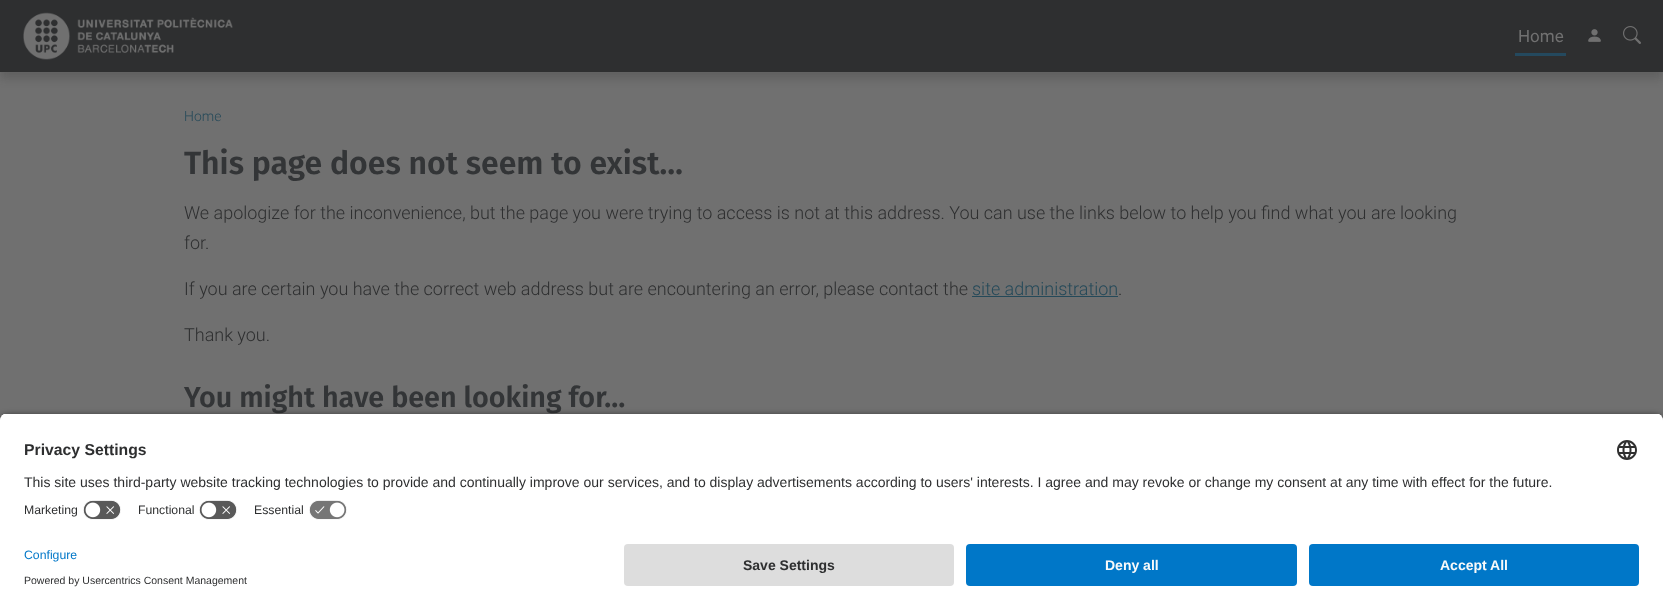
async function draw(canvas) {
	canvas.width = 1663;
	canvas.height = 610;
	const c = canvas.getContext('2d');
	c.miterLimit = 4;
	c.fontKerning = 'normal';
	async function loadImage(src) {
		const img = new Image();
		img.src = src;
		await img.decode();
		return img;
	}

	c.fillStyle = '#707070';
	c.fillRect(0, 0, 1663, 610);
	c.fillStyle = '#24242433';
	c.filter = 'blur(4px)';
	c.beginPath();
	c.rect(0, 7, 1663, 72);
	c.fill();
	c.filter = 'none';
	c.fillStyle = '#2e2f30';
	c.fillRect(0, 0, 1663, 72);
	c.drawImage(await loadImage('img1.png'), 23, 12, 210, 48);
	c.fillStyle = '#24495e';
	c.fillRect(1515, 53, 51, 3);
	c.font = '17px Roboto';
	c.fillStyle = '#707070';
	c.fillText('Home', 1518, 42);
	c.drawImage(await loadImage('img2.png'), 1588, 29, 13, 13);
	c.drawImage(await loadImage('img3.png'), 1623, 26, 18, 18);
	c.font = '300 14px Roboto';
	c.fillStyle = '#244959';
	c.fillText('Home', 184, 121);
	c.font = '600 32px Fira Sans';
	c.fillStyle = '#333537';
	c.fillText('This page does not seem to exist…', 184, 174);
	c.font = '300 18px Roboto';
	c.fillStyle = '#2e2f30';
	for (const [text, x, y] of [
		['We apologize for the inconvenience, but the page you were trying to access is not at this address. You can use the links below to help you find what you are looking', 184, 219],
		['for.', 184, 249],
		['If you are certain you have the correct web address but are encountering an error, please contact the', 184, 295],
	]) {
		c.fillText(text, x, y);
	}
	c.fillStyle = '#244959';
	c.fillText('site administration', 972, 295);
	c.fillRect(972, 296, 146, 1);
	c.fillStyle = '#2e2f30';
	c.fillText('.', 1118, 295);
	c.fillText('Thank you.', 184, 341);
	c.font = '600 28.75px Fira Sans';
	c.fillStyle = '#333537';
	c.fillText('You might have been looking for…', 184, 407);
	c.fillStyle = '#000000cc';
	c.filter = 'blur(3.5px)';
	c.beginPath();
	c.roundRect(0, 416, 1663, 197, 8);
	c.fill();
	c.filter = 'none';
	c.save();
	c.beginPath();
	c.roundRect(0, 413, 1663, 123, [8, 8, 0, 0]);
	c.clip();
	c.fillStyle = '#fff';
	c.fillRect(0, 414, 1663, 122);
	c.fillRect(0, 414, 1663, 82);
	c.restore();
	c.font = 'bold 15.75px Liberation Sans';
	c.fillStyle = '#2e2f30';
	c.fillText('Privacy Settings', 24, 455);
	c.drawImage(await loadImage('img4.png'), 1617, 440, 20, 20);
	c.font = '14px Liberation Sans';
	c.fillText('This site uses third-party website tracking technologies to provide and continually improve our services, and to display advertisements according to users\' interests. I agree and may revoke or change my consent at any time with effect for the future.', 24, 487);
	c.font = '12.25px Liberation Sans';
	c.fillText('Marketing', 24, 514);
	c.drawImage(await loadImage('img5.png'), 83, 500, 38, 20);
	c.fillText('Functional', 138, 514);
	c.drawImage(await loadImage('img5.png'), 199, 500, 38, 20);
	c.fillText('Essential', 254, 514);
	c.drawImage(await loadImage('img6.png'), 309, 500, 38, 20);
	c.fillStyle = '#fff';
	c.fillRect(0, 536, 1663, 74);
	c.fillStyle = '#0077c8';
	c.fillText('Configure', 24, 559);
	c.font = '10.5px Liberation Sans';
	c.fillStyle = '#2e2f30';
	c.fillText('Powered by Usercentrics Consent Management', 24, 584);
	c.fillStyle = '#ddd';
	c.beginPath();
	c.roundRect(624, 544, 330, 42, 4);
	c.fill();
	c.font = 'bold 14px Liberation Sans';
	c.fillStyle = '#2e2f30';
	c.fillText('Save Settings', 743, 570);
	c.fillStyle = '#0077c8';
	c.beginPath();
	c.roundRect(966, 544, 331, 42, 4);
	c.fill();
	c.fillStyle = '#fafafa';
	c.fillText('Deny all', 1105, 570);
	c.fillStyle = '#0077c8';
	c.beginPath();
	c.roundRect(1309, 544, 330, 42, 4);
	c.fill();
	c.fillStyle = '#fafafa';
	c.fillText('Accept All', 1440, 570);
}

draw(document.querySelector('canvas'));
